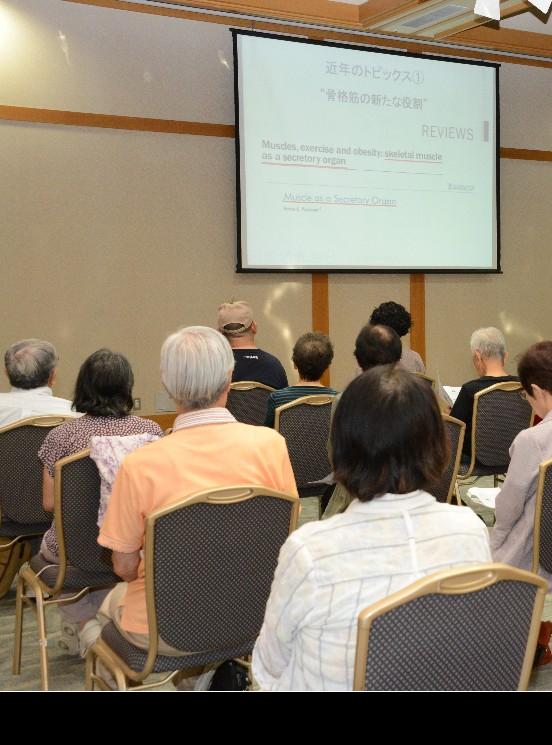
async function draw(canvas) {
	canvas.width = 552;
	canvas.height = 745;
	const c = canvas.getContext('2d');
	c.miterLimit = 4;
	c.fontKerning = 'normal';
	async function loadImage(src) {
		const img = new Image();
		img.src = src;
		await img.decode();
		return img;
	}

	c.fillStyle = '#000';
	c.fillRect(0, 0, 552, 745);
	c.drawImage(await loadImage('img1.png'), 0, 0, 552, 692);
}

draw(document.querySelector('canvas'));
